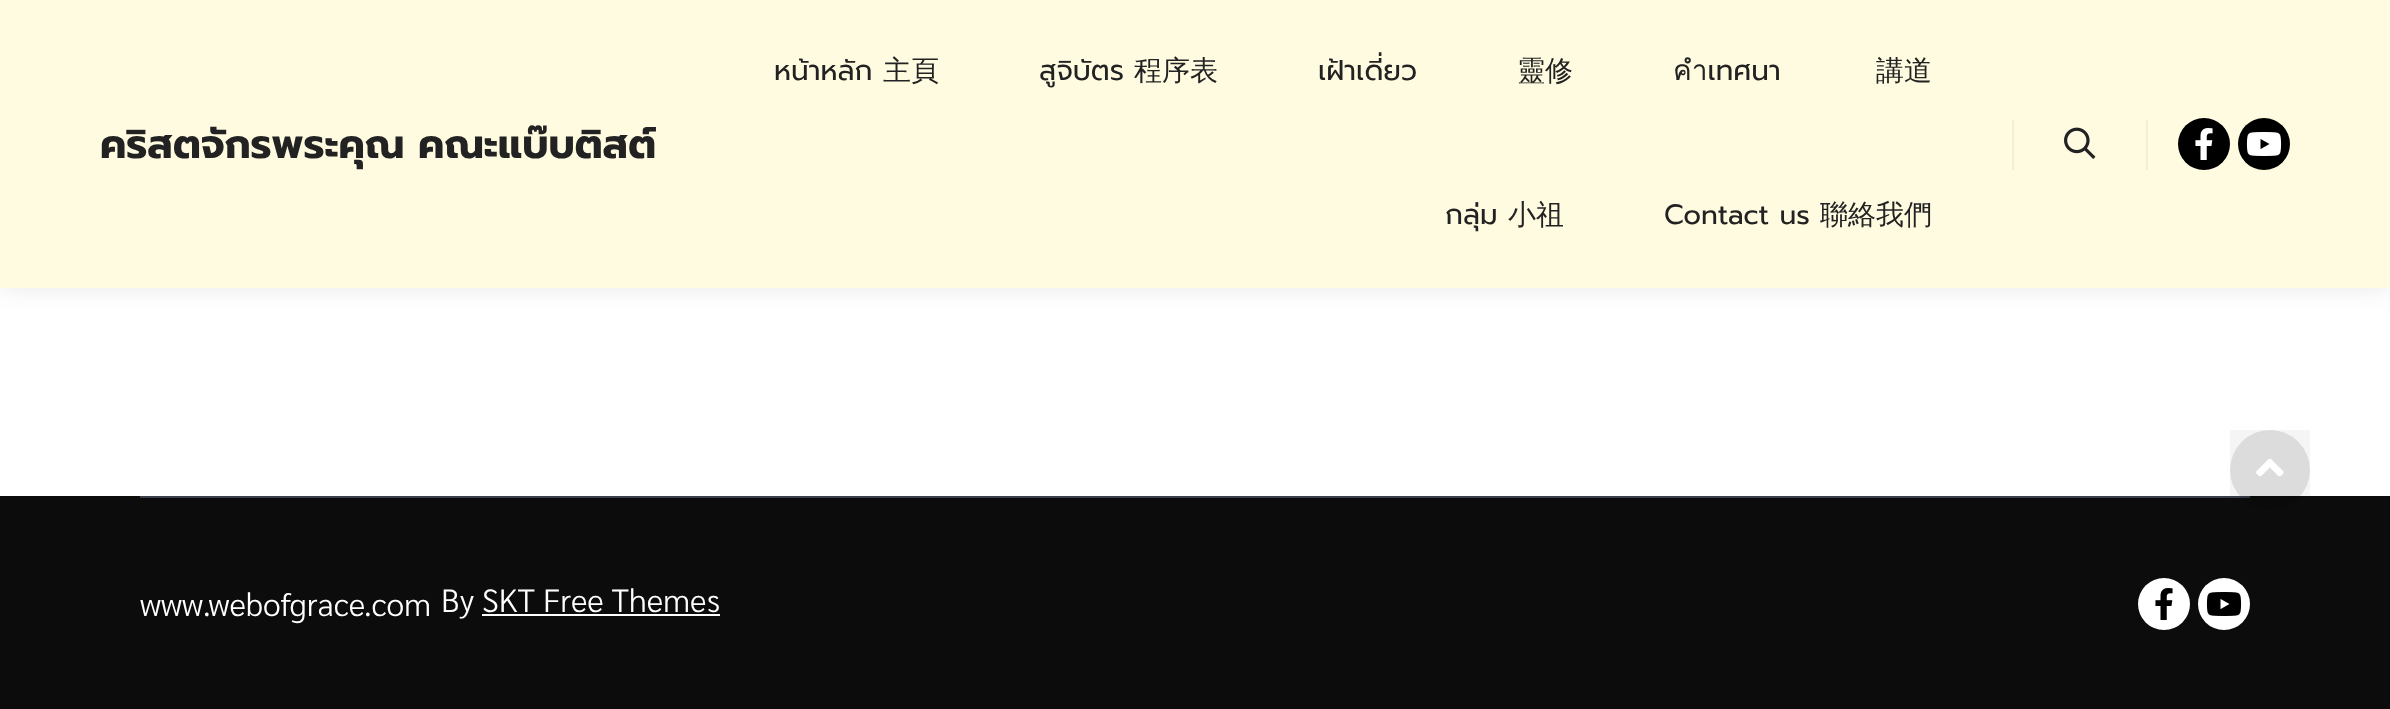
async function draw(canvas) {
	canvas.width = 2390;
	canvas.height = 709;
	const c = canvas.getContext('2d');
	c.miterLimit = 4;
	c.fontKerning = 'normal';
	async function loadImage(src) {
		const img = new Image();
		img.src = src;
		await img.decode();
		return img;
	}

	c.fillStyle = '#fff';
	c.fillRect(0, 0, 2390, 709);
	c.fillStyle = '#00000017';
	c.filter = 'blur(12px)';
	c.beginPath();
	c.rect(0, 0, 2390, 288);
	c.fill();
	c.filter = 'none';
	c.fillStyle = '#fffbe1';
	c.fillRect(0, 0, 2390, 288);
	c.font = 'bold 40px Prompt';
	c.fillStyle = '#222';
	c.fillText('คริสตจักรพระคุณ คณะแบ๊บติสต์', 100, 158);
	c.font = '28px Prompt';
	c.fillText('หน้าหลัก', 774, 80);
	c.font = '500 28px WenQuanYi Zen Hei';
	c.fillText('主頁', 883, 80);
	c.font = '28px Prompt';
	c.fillText('สูจิบัตร', 1039, 80);
	c.font = '500 28px WenQuanYi Zen Hei';
	c.fillText('程序表', 1134, 80);
	c.font = '28px Prompt';
	c.fillText('เฝ้าเดี่ยว', 1318, 80);
	c.font = '500 28px WenQuanYi Zen Hei';
	c.fillText('靈修', 1517, 80);
	c.font = '28px Prompt';
	c.fillText('คำเทศนา', 1673, 80);
	c.font = '500 28px WenQuanYi Zen Hei';
	c.fillText('講道', 1876, 80);
	c.font = '28px Prompt';
	c.fillText('กลุ่ม', 1445, 224);
	c.font = '500 28px WenQuanYi Zen Hei';
	c.fillText('小祖', 1508, 224);
	c.font = '28px Prompt';
	c.fillText('Contact us', 1664, 224);
	c.font = '500 28px WenQuanYi Zen Hei';
	c.fillText('聯絡我們', 1820, 224);
	c.fillStyle = '#f3efd7';
	c.fillRect(2012, 120, 2, 50);
	c.drawImage(await loadImage('img1.png'), 2064, 127, 32, 32);
	c.fillRect(2146, 120, 2, 50);
	c.fillStyle = '#000';
	c.beginPath();
	c.arc(2204, 144, 26, 0, 2 * Math.PI);
	c.fill();
	c.drawImage(await loadImage('img2.png'), 2195, 128, 18, 32);
	c.beginPath();
	c.arc(2264, 144, 26, 0, 2 * Math.PI);
	c.fill();
	c.drawImage(await loadImage('img3.png'), 2246, 132, 36, 24);
	c.fillStyle = '#0c0c0c';
	c.fillRect(0, 496, 2390, 213);
	c.fillStyle = '#39404a';
	c.fillRect(140, 496, 2110, 2);
	c.fillStyle = '#0000001a';
	c.beginPath();
	c.arc(2270, 470, 40, 0, 2 * Math.PI);
	c.fill();
	c.fillStyle = '#0000000a';
	c.fillRect(2230, 430, 80, 68);
	c.drawImage(await loadImage('img4.png'), 2256, 458, 28, 19);
	c.font = '300 32px Sarabun';
	c.fillStyle = '#fff';
	c.fillText('www.webofgrace.com', 140, 616);
	c.fillText('By SKT Free Themes', 441, 612);
	c.fillRect(482, 614, 238, 2);
	c.beginPath();
	c.arc(2164, 604, 26, 0, 2 * Math.PI);
	c.fill();
	c.drawImage(await loadImage('img5.png'), 2155, 588, 18, 32);
	c.beginPath();
	c.arc(2224, 604, 26, 0, 2 * Math.PI);
	c.fill();
	c.drawImage(await loadImage('img6.png'), 2206, 592, 36, 24);
}

draw(document.querySelector('canvas'));
